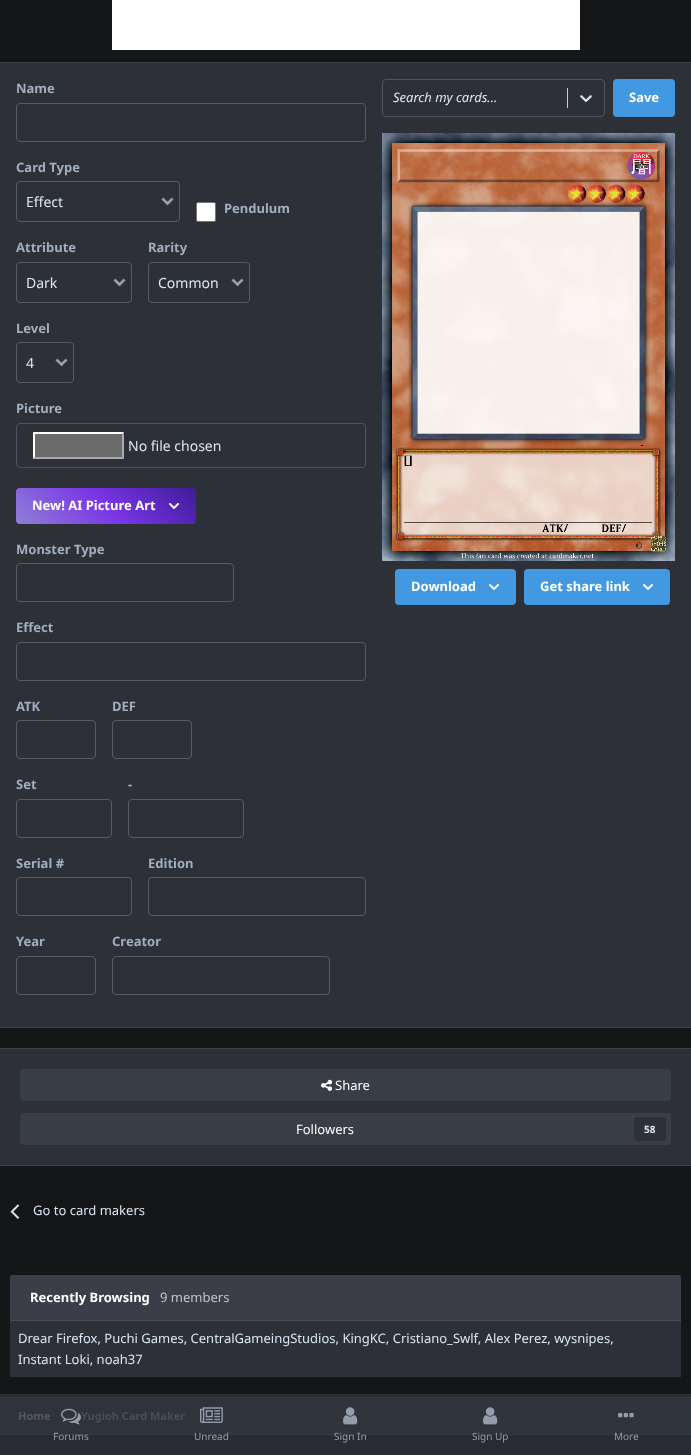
async function draw(canvas) {
	canvas.width = 691;
	canvas.height = 1455;
	const c = canvas.getContext('2d');
	c.miterLimit = 4;
	c.fontKerning = 'normal';
	async function loadImage(src) {
		const img = new Image();
		img.src = src;
		await img.decode();
		return img;
	}
	let gradient;

	c.fillStyle = '#151617';
	c.fillRect(0, 0, 691, 1455);
	for (const [x, y, w, h, color] of [
		[0, 1395, 691, 60, '#282b31'],
		[112, 0, 468, 50, '#fff'],
		[0, 63, 691, 964, '#2d3037'],
		[0, 62, 691, 1, '#3c4043'],
		[0, 1027, 691, 1, '#3c4043'],
	]) {
		c.fillStyle = color;
		c.fillRect(x, y, w, h);
	}
	c.font = 'bold 13px Noto Sans';
	c.fillStyle = '#a0aec0';
	c.fillText('Name', 16, 93);
	c.beginPath();
	c.roundRect(16.5, 103.5, 349, 38, 3.5);
	c.strokeStyle = '#565c66';
	c.stroke();
	c.fillText('Card Type', 16, 172);
	c.drawImage(await loadImage('img1.png'), 161, 197, 13, 9);
	c.beginPath();
	c.roundRect(16.5, 181.5, 163, 40, 3.5);
	c.stroke();
	c.font = '14px Noto Sans';
	c.fillStyle = '#dae6f3';
	c.fillText('Effect', 26, 207);
	c.fillStyle = '#fff';
	c.beginPath();
	c.roundRect(196.5, 202.5, 19, 19, 1.5);
	c.fill();
	c.strokeStyle = '#767676';
	c.stroke();
	c.font = 'bold 13px Noto Sans';
	c.fillStyle = '#a0aec0';
	c.fillText('Pendulum', 224, 213);
	c.fillText('Attribute', 16, 252);
	c.drawImage(await loadImage('img1.png'), 113, 278, 13, 9);
	c.beginPath();
	c.roundRect(16.5, 262.5, 115, 40, 3.5);
	c.strokeStyle = '#565c66';
	c.stroke();
	c.font = '14px Noto Sans';
	c.fillStyle = '#dae6f3';
	c.fillText('Dark', 26, 288);
	c.font = 'bold 13px Noto Sans';
	c.fillStyle = '#a0aec0';
	c.fillText('Rarity', 148, 252);
	c.drawImage(await loadImage('img1.png'), 231, 278, 13, 9);
	c.beginPath();
	c.roundRect(148.5, 262.5, 101, 40, 3.5);
	c.stroke();
	c.font = '14px Noto Sans';
	c.fillStyle = '#dae6f3';
	c.fillText('Common', 158, 288);
	c.font = 'bold 13px Noto Sans';
	c.fillStyle = '#a0aec0';
	c.fillText('Level', 16, 333);
	c.drawImage(await loadImage('img1.png'), 55, 358, 13, 9);
	c.beginPath();
	c.roundRect(16.5, 342.5, 57, 40, 3.5);
	c.stroke();
	c.font = '14px Noto Sans';
	c.fillStyle = '#dae6f3';
	c.fillText('4', 26, 368);
	c.font = 'bold 13px Noto Sans';
	c.fillStyle = '#a0aec0';
	c.fillText('Picture', 16, 413);
	c.beginPath();
	c.roundRect(16.5, 423.5, 349, 44, 3.5);
	c.strokeStyle = '#50545d';
	c.stroke();
	c.fillStyle = '#6b6b6b';
	c.fillRect(33, 432, 91, 27);
	c.fillStyle = '#fff';
	c.beginPath();
	c.moveTo(33, 432);
	c.lineTo(124, 432);
	c.lineTo(122, 434);
	c.lineTo(35, 434);
	c.closePath();
	c.fill();
	c.fillStyle = '#aaa';
	c.beginPath();
	c.moveTo(124, 432);
	c.lineTo(124, 459);
	c.lineTo(122, 457);
	c.lineTo(122, 434);
	c.closePath();
	c.fill();
	c.beginPath();
	c.moveTo(124, 459);
	c.lineTo(33, 459);
	c.lineTo(35, 457);
	c.lineTo(122, 457);
	c.closePath();
	c.fill();
	c.fillStyle = '#fff';
	c.beginPath();
	c.moveTo(33, 459);
	c.lineTo(33, 432);
	c.lineTo(35, 434);
	c.lineTo(35, 457);
	c.closePath();
	c.fill();
	c.font = '14px Noto Sans';
	c.fillStyle = '#dae6f3';
	c.fillText('No file chosen', 128, 451);
	gradient = c.createLinearGradient(52, 560, 160, 452);
	gradient.addColorStop(0, '#8f7fd5');
	gradient.addColorStop(0.5, '#7935e7');
	gradient.addColorStop(1, '#3e1c97');
	c.fillStyle = gradient;
	c.beginPath();
	c.roundRect(16, 488, 180, 36, 4);
	c.fill();
	c.font = 'bold 13px Noto Sans';
	c.fillStyle = '#fff';
	c.fillText('New! AI Picture Art', 32, 510);
	c.drawImage(await loadImage('img2.png'), 169, 503, 10, 6);
	c.fillStyle = '#a0aec0';
	c.fillText('Monster Type', 16, 554);
	c.beginPath();
	c.roundRect(16.5, 563.5, 217, 38, 3.5);
	c.strokeStyle = '#565c66';
	c.stroke();
	c.fillText('Effect', 16, 632);
	c.beginPath();
	c.roundRect(16.5, 642.5, 349, 38, 3.5);
	c.stroke();
	c.fillText('ATK', 16, 711);
	c.beginPath();
	c.roundRect(16.5, 720.5, 79, 38, 3.5);
	c.stroke();
	c.fillText('DEF', 112, 711);
	c.beginPath();
	c.roundRect(112.5, 720.5, 79, 38, 3.5);
	c.stroke();
	c.fillText('Set', 16, 789);
	c.beginPath();
	c.roundRect(16.5, 799.5, 95, 38, 3.5);
	c.stroke();
	c.fillText('-', 128, 789);
	c.beginPath();
	c.roundRect(128.5, 799.5, 115, 38, 3.5);
	c.stroke();
	c.fillText('Serial #', 16, 868);
	c.beginPath();
	c.roundRect(16.5, 877.5, 115, 38, 3.5);
	c.stroke();
	c.fillText('Edition', 148, 868);
	c.beginPath();
	c.roundRect(148.5, 877.5, 217, 38, 3.5);
	c.stroke();
	c.fillText('Year', 16, 946);
	c.beginPath();
	c.roundRect(16.5, 956.5, 79, 38, 3.5);
	c.stroke();
	c.fillText('Creator', 112, 946);
	c.beginPath();
	c.roundRect(112.5, 956.5, 217, 38, 3.5);
	c.stroke();
	c.beginPath();
	c.roundRect(382.5, 79.5, 222, 37, 3.5);
	c.strokeStyle = '#50545d';
	c.stroke();
	c.font = 'italic 13px Noto Sans';
	c.fillStyle = '#dae6f3';
	c.fillText('Search my cards...', 393, 102);
	c.fillStyle = '#ccc';
	c.fillRect(567, 88, 1, 20);
	c.drawImage(await loadImage('img3.png'), 580, 95, 12, 7);
	c.fillStyle = '#4299e1';
	c.beginPath();
	c.roundRect(613, 79, 62, 38, 4);
	c.fill();
	c.font = 'bold 13px Noto Sans';
	c.fillStyle = '#fff';
	c.fillText('Save', 629, 102);
	c.drawImage(await loadImage('img4.png'), 382, 133, 293, 428);
	c.fillStyle = '#4299e1';
	c.beginPath();
	c.roundRect(395, 569, 121, 36, 4);
	c.fill();
	c.fillStyle = '#fff';
	c.fillText('Download', 411, 591);
	c.drawImage(await loadImage('img5.png'), 489, 584, 10, 6);
	c.fillStyle = '#4299e1';
	c.beginPath();
	c.roundRect(524, 569, 146, 36, 4);
	c.fill();
	c.fillStyle = '#fff';
	c.fillText('Get share link', 540, 591);
	c.drawImage(await loadImage('img5.png'), 643, 584, 10, 6);
	for (const [x, y, w, h, color] of [
		[0, 1049, 691, 116, '#2d3037'],
		[0, 1048, 691, 1, '#3c4043'],
		[0, 1165, 691, 1, '#3c4043'],
	]) {
		c.fillStyle = color;
		c.fillRect(x, y, w, h);
	}
	c.fillStyle = '#393d46';
	c.beginPath();
	c.roundRect(20, 1069, 651, 32, 4);
	c.fill();
	c.drawImage(await loadImage('img6.png'), 321, 1079, 12, 12);
	c.font = '13px Noto Sans';
	c.fillStyle = '#fff';
	c.fillText('Share', 335, 1090);
	c.fillStyle = '#393d46';
	c.beginPath();
	c.roundRect(20, 1113, 651, 32, 4);
	c.fill();
	c.fillStyle = '#fff';
	c.fillText('Followers', 296, 1134);
	c.fillStyle = '#2d3037';
	c.beginPath();
	c.roundRect(634, 1117, 32, 24, 4);
	c.fill();
	c.font = 'bold 10px Noto Sans';
	c.fillStyle = '#dae6f3';
	c.fillText('58', 644, 1133);
	c.drawImage(await loadImage('img7.png'), 10, 1204, 10, 15);
	c.font = '13px Noto Sans';
	c.fillText('Go to card makers', 33, 1215);
	c.fillStyle = '#2d3037';
	c.fillRect(10, 1275, 671, 102);
	c.fillStyle = '#3b3e48';
	c.beginPath();
	c.roundRect(10, 1275, 671, 46, [4, 4, 0, 0]);
	c.fill();
	c.fillStyle = '#484c57';
	c.fillRect(10, 1320, 671, 1);
	c.font = 'bold 13px Noto Sans';
	c.fillStyle = '#fff';
	c.fillText('Recently Browsing', 30, 1302);
	c.font = '13px Noto Sans';
	c.fillStyle = '#c4c5c8';
	c.fillText('9 members', 160, 1302);
	c.fillStyle = '#dae6f3';
	c.fillText('Drear Firefox, Puchi Games, CentralGameingStudios, KingKC, Cristiano_Swlf, Alex Perez, wysnipes,', 18, 1343);
	c.fillText('Instant Loki, noah37', 18, 1364);
	c.fillStyle = '#2f333a';
	c.fillRect(0, 1397, 691, 38);
	c.fillStyle = '#393c43';
	c.beginPath();
	c.moveTo(58, 1397);
	c.lineTo(59, 1397);
	c.lineTo(70, 1416);
	c.lineTo(69, 1416);
	c.closePath();
	c.fill();
	c.fillStyle = '#24262c4d';
	c.beginPath();
	c.moveTo(59, 1397);
	c.lineTo(60, 1397);
	c.lineTo(71, 1416);
	c.lineTo(70, 1416);
	c.closePath();
	c.fill();
	c.fillStyle = '#50545d33';
	c.fillRect(0, 1397, 691, 1);
	c.fillStyle = '#393c43';
	c.beginPath();
	c.moveTo(58, 1435);
	c.lineTo(59, 1435);
	c.lineTo(70, 1416);
	c.lineTo(69, 1416);
	c.closePath();
	c.fill();
	c.fillStyle = '#24262c4d';
	c.beginPath();
	c.moveTo(59, 1435);
	c.lineTo(60, 1435);
	c.lineTo(71, 1416);
	c.lineTo(70, 1416);
	c.closePath();
	c.fill();
	c.fillStyle = '#50545d33';
	c.fillRect(0, 1434, 691, 1);
	c.font = 'bold 11px Noto Sans';
	c.fillStyle = '#57595f';
	c.fillText('Home', 18, 1420);
	c.fillStyle = '#4b4e54';
	c.fillText('Yugioh Card Maker', 81, 1420);
	c.fillStyle = '#2c2d2e';
	c.fillRect(0, 1394, 691, 1);
	c.drawImage(await loadImage('img8.png'), 61, 1408, 20, 17);
	c.font = '10px Noto Sans';
	c.fillStyle = '#939dac';
	c.fillText('Forums', 53, 1440);
	c.drawImage(await loadImage('img9.png'), 200, 1407, 23, 16);
	c.fillText('Unread', 194, 1440);
	c.drawImage(await loadImage('img10.png'), 343, 1407, 15, 18);
	c.fillText('Sign In', 334, 1440);
	c.drawImage(await loadImage('img10.png'), 483, 1407, 15, 18);
	c.fillText('Sign Up', 472, 1440);
	c.drawImage(await loadImage('img11.png'), 618, 1413, 16, 5);
	c.fillText('More', 614, 1440);
}

draw(document.querySelector('canvas'));
